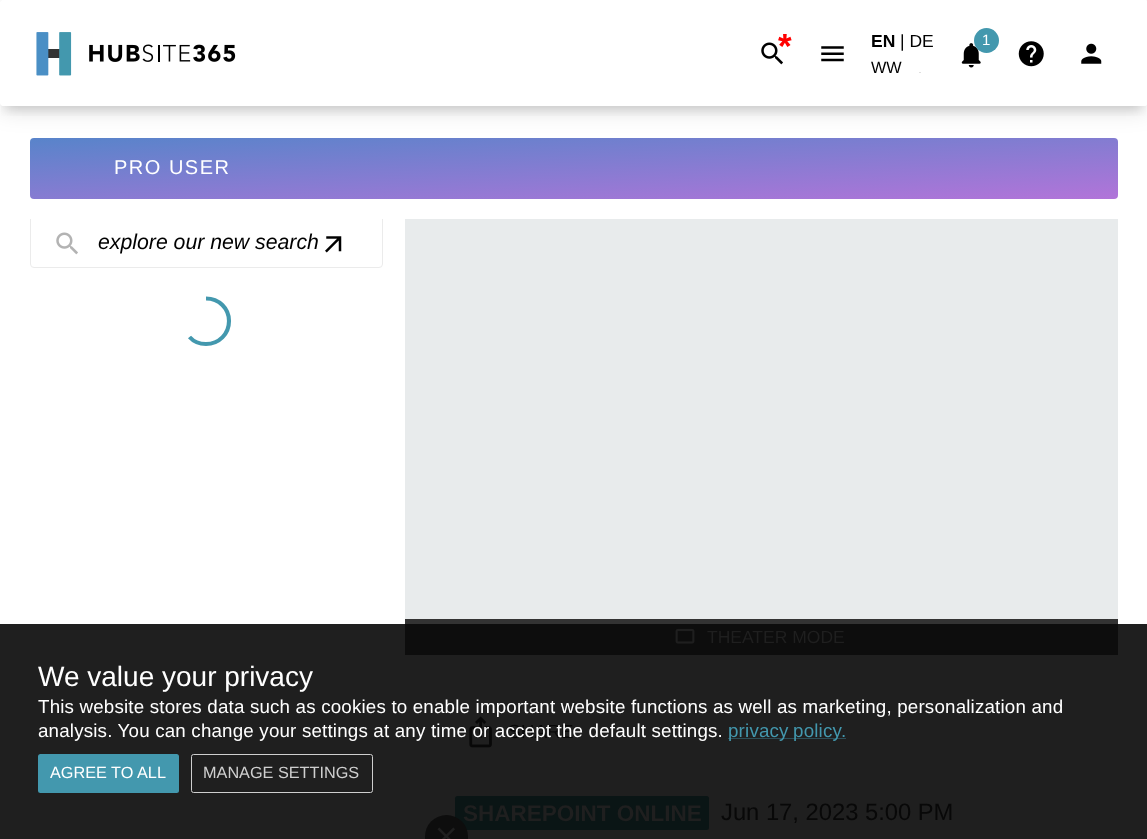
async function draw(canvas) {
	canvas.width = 1147;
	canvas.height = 839;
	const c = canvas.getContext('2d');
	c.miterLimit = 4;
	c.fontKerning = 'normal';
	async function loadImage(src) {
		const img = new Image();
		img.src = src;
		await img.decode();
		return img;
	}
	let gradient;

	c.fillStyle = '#fff';
	c.fillRect(0, 0, 1147, 839);
	c.fillStyle = '#1f1f1f';
	c.fillRect(0, 624, 1147, 215);
	c.save();
	c.beginPath();
	c.rect(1, 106, 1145, 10);
	c.clip();
	c.fillStyle = '#00000026';
	c.filter = 'blur(6px)';
	c.beginPath();
	c.rect(6, 15, 1135, 94);
	c.fill();
	c.filter = 'none';
	c.restore();
	gradient = c.createLinearGradient(577, 227, 571, 109);
	gradient.addColorStop(0, '#b274d9');
	gradient.addColorStop(1, '#5784ca');
	c.fillStyle = gradient;
	c.beginPath();
	c.roundRect(30, 138, 1088, 61, 4);
	c.fill();
	c.save();
	c.beginPath();
	c.moveTo(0, 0);
	c.lineTo(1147, 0);
	c.lineTo(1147, 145);
	c.lineTo(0, 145);
	c.closePath();
	c.moveTo(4, 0);
	c.lineTo(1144, 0);
	c.bezierCurveTo(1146, 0, 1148, 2, 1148, 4);
	c.lineTo(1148, 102);
	c.bezierCurveTo(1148, 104, 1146, 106, 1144, 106);
	c.lineTo(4, 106);
	c.bezierCurveTo(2, 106, 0, 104, 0, 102);
	c.lineTo(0, 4);
	c.bezierCurveTo(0, 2, 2, 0, 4, 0);
	c.closePath();
	c.clip('evenodd');
	c.fillStyle = '#0000001f';
	c.filter = 'blur(11px)';
	c.beginPath();
	c.roundRect(0, 5, 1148, 106, 4);
	c.fill();
	c.filter = 'none';
	c.restore();
	c.fillStyle = '#fffffff5';
	c.beginPath();
	c.roundRect(0, 0, 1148, 106, 4);
	c.fill();
	c.drawImage(await loadImage('img1.png'), 36, 32, 36, 44);
	c.drawImage(await loadImage('img2.png'), 89, 44, 147, 18);
	c.font = 'bold 35px Liberation Sans';
	c.fillStyle = '#f00';
	c.fillText('*', 778, 58);
	c.drawImage(await loadImage('img3.png'), 761, 42, 22, 23);
	c.font = 'bold 17.5px Liberation Sans';
	c.fillStyle = '#000';
	c.fillText('EN', 871, 47);
	c.font = '17.5px Liberation Sans';
	c.fillText('| DE', 900, 47);
	c.font = '16.25px Liberation Sans';
	c.fillText('WW', 871, 73);
	c.beginPath();
	c.moveTo(919.5, 72.5);
	c.lineTo(920, 73);
	c.lineTo(920.5, 72.5);
	c.closePath();
	c.fill();
	c.drawImage(await loadImage('img4.png'), 961, 43, 20, 25);
	c.fillStyle = '#4398ae';
	c.beginPath();
	c.arc(986.5, 40.5, 12.5, 0, 2 * Math.PI);
	c.fill();
	c.font = '15px Liberation Sans';
	c.fillStyle = '#fff';
	c.fillText('1', 982, 45);
	c.drawImage(await loadImage('img5.png'), 1018, 41, 26, 26);
	c.drawImage(await loadImage('img6.png'), 1081, 43, 21, 21);
	c.drawImage(await loadImage('img7.png'), 821, 46, 23, 16);
	c.letterSpacing = '1.5px';
	c.font = '20px Liberation Sans';
	c.fillText('PRO USER', 114, 174);
	c.drawImage(await loadImage('img8.png'), 56, 232, 22, 23);
	c.save();
	c.beginPath();
	c.rect(30, 219, 353, 615);
	c.clip();
	c.beginPath();
	c.roundRect(30.5, 213.5, 352, 54, 3.5);
	c.strokeStyle = '#ebebeb';
	c.stroke();
	c.restore();
	c.letterSpacing = '0px';
	c.font = 'italic 21.25px Liberation Sans';
	c.fillStyle = '#000';
	c.fillText('explore our new search', 98, 249);
	c.drawImage(await loadImage('img9.png'), 325, 236, 17, 17);
	c.beginPath();
	c.moveTo(206, 298.5);
	c.bezierCurveTo(219, 298.5, 229, 308.5, 229, 321);
	c.bezierCurveTo(229, 334, 219, 344, 206, 344);
	c.bezierCurveTo(199.5, 344, 193.5, 341.5, 189.5, 337);
	c.strokeStyle = '#4398ae';
	c.lineWidth = 4.1;
	c.stroke();
	for (const [x, y, w, h, color] of [
		[405, 219, 713, 400, '#e8ebec'],
		[405, 619, 713, 5, '#333'],
		[405, 624, 713, 31, '#0d0d0d'],
	]) {
		c.fillStyle = color;
		c.fillRect(x, y, w, h);
	}
	c.drawImage(await loadImage('img10.png'), 675, 628, 20, 16);
	c.font = '17.5px Liberation Sans';
	c.fillStyle = '#1f1f1f';
	c.fillText('THEATER MODE', 707, 643);
	c.drawImage(await loadImage('img11.png'), 469, 716, 23, 32);
	c.font = '19px Liberation Sans';
	c.fillStyle = '#080808';
	c.fillText('SHARE', 508, 738);
	c.fillStyle = '#0a1515';
	c.beginPath();
	c.roundRect(455, 796, 254, 34, 2.5);
	c.fill();
	c.font = 'bold 22.5px Liberation Sans';
	c.fillStyle = '#1f1f1f';
	c.fillText('SHAREPOINT ONLINE', 463, 821);
	c.font = '23.75px Liberation Sans';
	c.fillStyle = '#080808';
	c.fillText('Jun 17, 2023 5:00 PM', 721, 820);
	c.fillStyle = '#0d0d0d';
	c.beginPath();
	c.arc(446.5, 836.5, 21.5, 0, 2 * Math.PI);
	c.fill();
	c.drawImage(await loadImage('img12.png'), 437, 827, 18, 12);
	c.font = '28px Liberation Sans';
	c.fillStyle = '#fff';
	c.fillText('We value your privacy', 38, 686);
	c.letterSpacing = '0.18px';
	c.font = '18.75px Liberation Sans';
	c.fillText('This website stores data such as cookies to enable important website functions as well as marketing, personalization and', 38, 713);
	c.fillText('analysis. You can change your settings at any time or accept the default settings.', 38, 737);
	c.fillStyle = '#2c4e57';
	c.fillRect(728, 738, 113, 1);
	c.wordSpacing = '-1px';
	c.fillStyle = '#4398ae';
	c.fillText('privacy policy', 728, 737);
	c.wordSpacing = '0px';
	c.fillText('.', 841, 737);
	c.fillStyle = '#2c4e57';
	c.fillRect(841, 738, 5, 1);
	c.fillStyle = '#4398ae';
	c.beginPath();
	c.roundRect(38, 754, 141, 39, 2.5);
	c.fill();
	c.letterSpacing = '0px';
	c.font = '16.25px Liberation Sans';
	c.fillStyle = '#fff';
	c.fillText('AGREE TO ALL', 50, 778);
	c.beginPath();
	c.roundRect(191.5, 754.5, 181, 38, 2);
	c.strokeStyle = '#cfcfcf';
	c.lineWidth = 1;
	c.stroke();
	c.fillStyle = '#cfcfcf';
	c.fillText('MANAGE SETTINGS', 203, 778);
}

draw(document.querySelector('canvas'));
